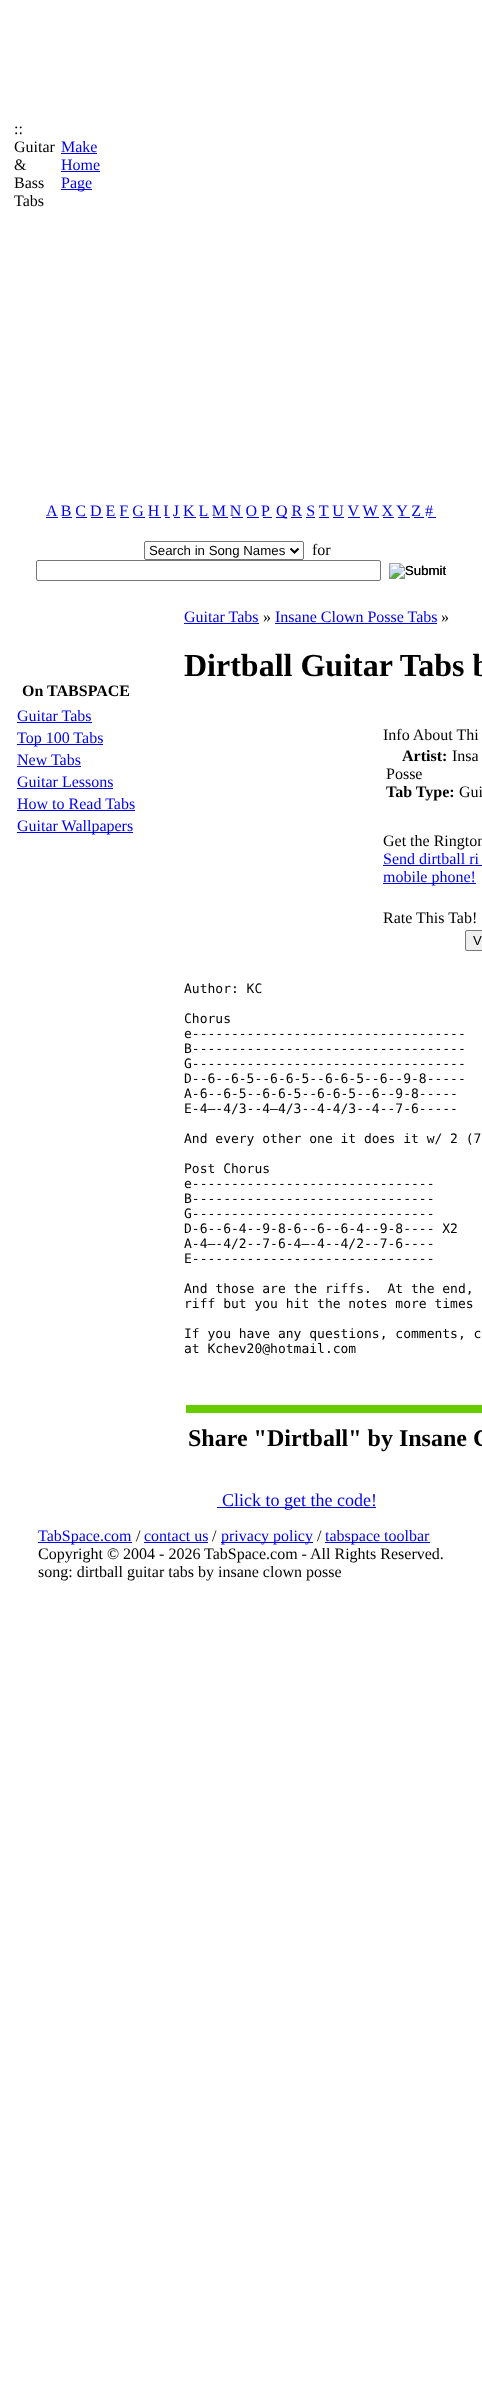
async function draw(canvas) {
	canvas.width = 482;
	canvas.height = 2402;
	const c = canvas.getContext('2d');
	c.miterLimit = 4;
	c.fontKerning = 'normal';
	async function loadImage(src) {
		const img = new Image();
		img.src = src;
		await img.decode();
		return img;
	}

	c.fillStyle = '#fff';
	c.fillRect(0, 0, 482, 2402);
	c.font = '16px Liberation Serif';
	c.fillStyle = '#000';
	for (const [text, x, y] of [
		['::', 14, 134],
		['Guitar', 14, 152],
		['&', 14, 170],
		['Bass', 14, 188],
		['Tabs', 14, 206],
	]) {
		c.fillText(text, x, y);
	}
	c.fillStyle = '#00e';
	c.fillText('Make', 61, 152);
	c.fillRect(61, 153, 36, 1);
	c.fillText('Home', 61, 170);
	c.fillRect(61, 171, 39, 1);
	c.fillRect(61, 189, 31, 1);
	c.fillText('Page', 61, 188);
	c.fillText('A B C D E F G H I J K L M N O P', 46, 516);
	c.fillRect(46, 517, 12, 1);
	c.fillRect(276, 517, 11, 1);
	c.fillText('Q R S T U V W X Y Z #', 276, 516);
	for (const [x, y, w, h, color] of [
		[62, 517, 10, 1, '#00e'],
		[76, 517, 11, 1, '#00e'],
		[91, 517, 12, 1, '#00e'],
		[107, 517, 9, 1, '#00e'],
		[120, 517, 9, 1, '#00e'],
		[133, 517, 12, 1, '#00e'],
		[149, 517, 12, 1, '#00e'],
		[165, 517, 5, 1, '#00e'],
		[174, 517, 6, 1, '#00e'],
		[184, 517, 12, 1, '#00e'],
		[200, 517, 9, 1, '#00e'],
		[213, 517, 15, 1, '#00e'],
		[232, 517, 11, 1, '#00e'],
		[247, 517, 12, 1, '#00e'],
		[263, 517, 9, 1, '#00e'],
		[291, 517, 11, 1, '#00e'],
		[306, 517, 9, 1, '#00e'],
		[319, 517, 10, 1, '#00e'],
		[333, 517, 11, 1, '#00e'],
		[348, 517, 12, 1, '#00e'],
		[364, 517, 15, 1, '#00e'],
		[383, 517, 11, 1, '#00e'],
		[398, 517, 12, 1, '#00e'],
		[414, 517, 10, 1, '#00e'],
		[428, 517, 8, 1, '#00e'],
	]) {
		c.fillStyle = color;
		c.fillRect(x, y, w, h);
	}
	c.beginPath();
	c.roundRect(144.5, 541.5, 159, 18, 1.5);
	c.strokeStyle = '#767676';
	c.stroke();
	c.beginPath();
	c.moveTo(290.5, 548.5);
	c.lineTo(294.5, 552.5);
	c.lineTo(298.5, 548.5);
	c.strokeStyle = '#000';
	c.lineWidth = 2;
	c.stroke();
	c.font = '13.25px Liberation Sans';
	c.fillStyle = '#000';
	c.fillText('Search in Song Names', 149, 555);
	c.font = '16px Liberation Serif';
	c.fillText('for', 312, 555);
	c.beginPath();
	c.roundRect(36.5, 560.5, 344, 20, 1.5);
	c.strokeStyle = '#767676';
	c.lineWidth = 1;
	c.stroke();
	c.drawImage(await loadImage('img1.png'), 389, 563, 57, 16);
	c.font = '13.25px Liberation Sans';
	c.fillText('Submit', 405, 575);
	c.font = 'bold 16px Liberation Serif';
	c.fillText('On TABSPACE', 22, 696);
	c.font = '16px Liberation Serif';
	c.fillStyle = '#00e';
	c.fillText('Guitar Tabs', 17, 721);
	c.fillRect(17, 722, 75, 1);
	c.fillRect(17, 744, 86, 1);
	c.fillText('Top 100 Tabs', 17, 743);
	c.fillText('New Tabs', 17, 765);
	c.fillRect(17, 766, 64, 1);
	c.fillText('Guitar Lessons', 17, 787);
	c.fillRect(17, 788, 96, 1);
	c.fillText('How to Read Tabs', 17, 809);
	c.fillRect(17, 810, 118, 1);
	c.fillRect(17, 832, 116, 1);
	c.fillText('Guitar Wallpapers', 17, 831);
	c.fillText('Guitar Tabs', 184, 622);
	c.fillRect(184, 623, 75, 1);
	c.fillStyle = '#000';
	c.fillText('»', 263, 622);
	c.fillStyle = '#00e';
	c.fillText('Insane Clown Posse Tabs', 275, 622);
	c.fillRect(275, 623, 162, 1);
	c.fillStyle = '#000';
	c.fillText('»', 441, 622);
	c.font = 'bold 32px Liberation Serif';
	c.fillText('Dirtball Guitar Tabs b', 184, 676);
	c.font = '16px Liberation Serif';
	c.fillText('Info About Thi', 383, 740);
	c.font = 'bold 16px Liberation Serif';
	c.fillText('Artist:', 402, 761);
	c.font = '16px Liberation Serif';
	c.fillText('Insa', 452, 761);
	c.fillText('Posse', 386, 779);
	c.font = 'bold 16px Liberation Serif';
	c.fillText('Tab Type:', 386, 797);
	c.font = '16px Liberation Serif';
	c.fillText('Gui', 459, 797);
	c.fillText('Get the Rington', 383, 846);
	c.fillStyle = '#00e';
	c.fillText('Send dirtball ri', 383, 864);
	c.fillRect(383, 865, 99, 1);
	c.fillRect(383, 883, 93, 1);
	c.fillText('mobile phone!', 383, 882);
	c.fillStyle = '#000';
	c.fillText('Rate This Tab!', 383, 923);
	c.fillStyle = '#efefef';
	c.beginPath();
	c.roundRect(465.5, 930.5, 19, 20, 1.5);
	c.fill();
	c.stroke();
	c.font = '13.25px Liberation Sans';
	c.fillStyle = '#000';
	c.fillText('V', 473, 945);
	c.font = '13px DejaVu Sans Mono';
	for (const [text, x, y] of [
		['Author: KC', 184, 993],
		['Chorus', 184, 1023],
		['e-----------------------------------', 184, 1038],
		['B-----------------------------------', 184, 1053],
		['G-----------------------------------', 184, 1068],
		['D--6--6-5--6-6-5--6-6-5--6--9-8-----', 184, 1083],
		['A-6--6-5--6-6-5--6-6-5--6--9-8-----', 184, 1098],
		['E-4—-4/3--4—4/3--4-4/3--4--7-6-----', 184, 1113],
		['And every other one it does it w/ 2 (7', 184, 1143],
		['Post Chorus', 184, 1173],
		['e-------------------------------', 184, 1188],
		['B-------------------------------', 184, 1203],
		['G-------------------------------', 184, 1218],
		['D-6--6-4--9-8-6--6--6-4--9-8---- X2', 184, 1233],
		['A-4—-4/2--7-6-4—-4--4/2--7-6----', 184, 1248],
		['E-------------------------------', 184, 1263],
		['And those are the riffs.  At the end,', 184, 1293],
		['riff but you hit the notes more times', 184, 1308],
		['If you have any questions, comments, c', 184, 1338],
		['at Kchev20@hotmail.com', 184, 1353],
	]) {
		c.fillText(text, x, y);
	}
	c.fillStyle = '#6c0';
	c.fillRect(186, 1405, 296, 8);
	c.font = 'bold 24px Liberation Serif';
	c.fillStyle = '#000';
	c.fillText('Share "Dirtball" by Insane C', 188, 1446);
	c.fillStyle = '#00e';
	c.fillRect(217, 1507, 159, 1);
	c.font = '18px Liberation Serif';
	c.fillText('Click to get the code!', 222, 1506);
	c.fillRect(38, 1542, 94, 1);
	c.font = '16px Liberation Serif';
	c.fillText('TabSpace.com', 38, 1541);
	c.fillStyle = '#000';
	c.fillText('/', 136, 1541);
	c.fillStyle = '#00e';
	c.fillText('contact us', 144, 1541);
	c.fillRect(144, 1542, 64, 1);
	c.fillStyle = '#000';
	c.fillText('/', 212, 1541);
	c.fillStyle = '#00e';
	c.fillRect(221, 1542, 92, 1);
	c.fillText('privacy policy', 221, 1541);
	c.fillStyle = '#000';
	c.fillText('/', 317, 1541);
	c.fillStyle = '#00e';
	c.fillRect(325, 1542, 105, 1);
	c.fillText('tabspace toolbar', 325, 1541);
	c.fillStyle = '#000';
	c.fillText('Copyright © 2004 - 2026 TabSpace.com - All Rights Reserved.', 38, 1559);
	c.fillText('song: dirtball guitar tabs by insane clown posse', 38, 1577);
}

draw(document.querySelector('canvas'));
